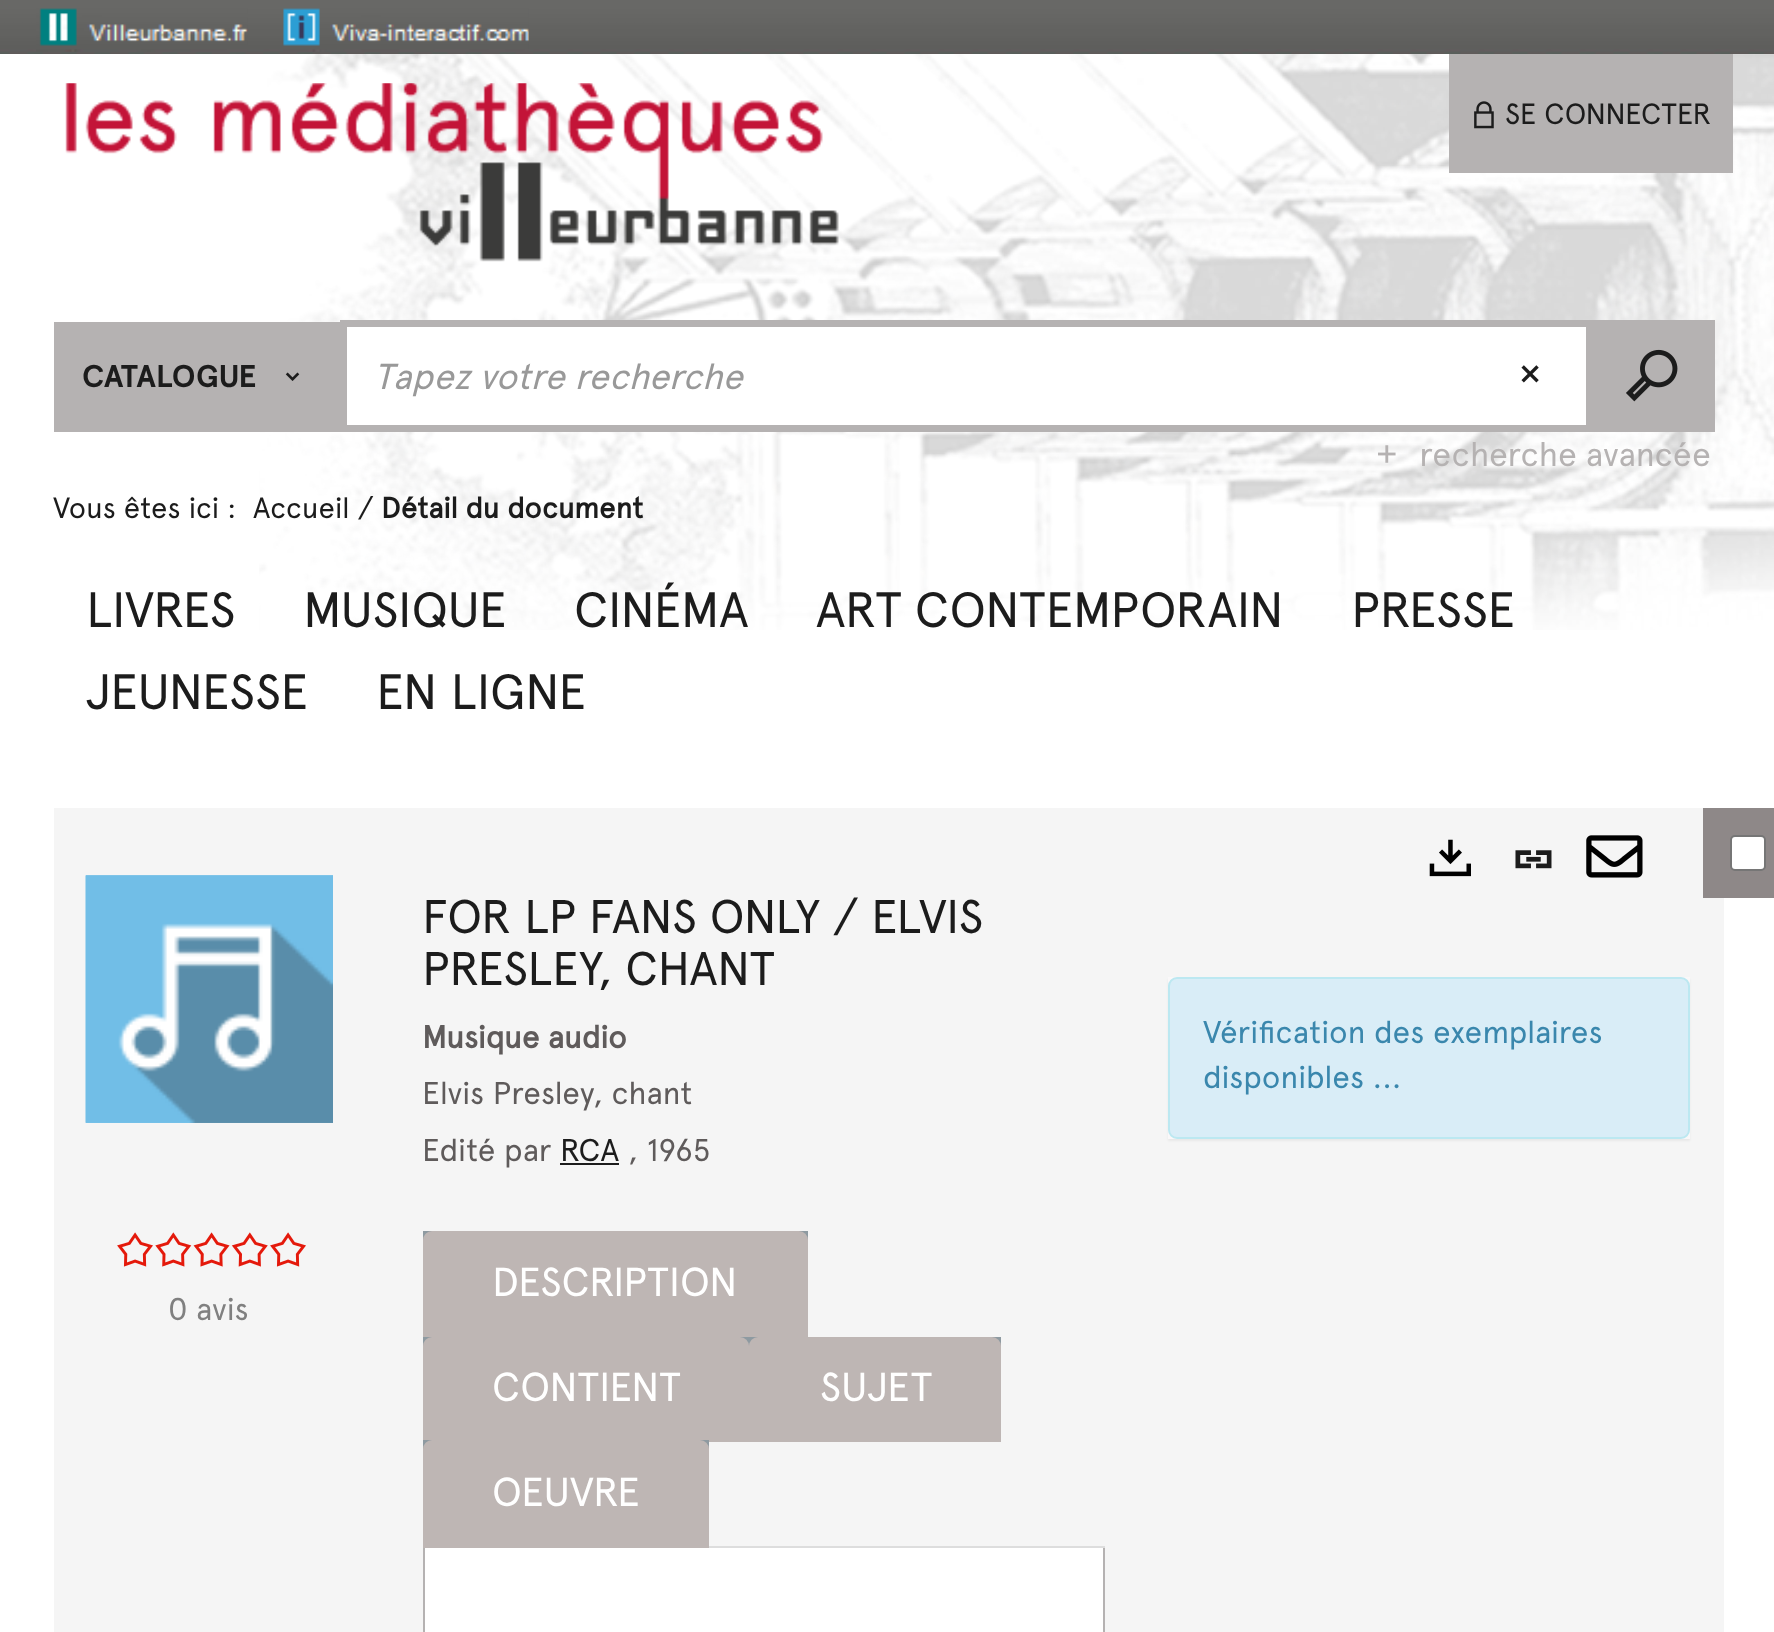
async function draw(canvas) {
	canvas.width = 1774;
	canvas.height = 1632;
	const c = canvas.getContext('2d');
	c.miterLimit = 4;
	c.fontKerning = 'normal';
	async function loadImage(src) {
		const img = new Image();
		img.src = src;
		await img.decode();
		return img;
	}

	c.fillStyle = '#fff';
	c.fillRect(0, 0, 1774, 1632);
	c.drawImage(await loadImage('img1.png'), 259, 54, 1515, 576);
	c.drawImage(await loadImage('img2.png'), 0, 0, 1774, 54);
	c.drawImage(await loadImage('img3.png'), 65, 83, 774, 179);
	c.drawImage(await loadImage('img4.png'), 36, 8, 212, 44);
	c.drawImage(await loadImage('img5.png'), 283, 8, 246, 44);
	c.fillStyle = '#b5b2b2';
	c.fillRect(1449, 54, 284, 119);
	c.drawImage(await loadImage('img6.png'), 1474, 101, 20, 28);
	c.font = '29.25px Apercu';
	c.fillStyle = '#1c1c1c';
	c.fillText('SE CONNECTER', 1505, 124);
	c.fillStyle = '#b5b2b2';
	c.fillRect(54, 322, 286, 110);
	c.font = 'bold 31.5px "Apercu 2"';
	c.fillStyle = '#1c1c1c';
	c.fillText('CATALOGUE', 82, 387);
	c.drawImage(await loadImage('img7.png'), 285, 372, 15, 9);
	for (const [x, y, w, h, color] of [
		[347, 327, 1239, 98, '#fff'],
		[340, 320, 1253, 7, '#b5b2b2'],
		[340, 425, 1145, 7, '#b5b2b2'],
		[340, 320, 7, 112, '#b5b2b2'],
	]) {
		c.fillStyle = color;
		c.fillRect(x, y, w, h);
	}
	c.font = 'italic 36px Apercu';
	c.fillStyle = '#999';
	c.fillText('Tapez votre recherche', 374, 389);
	c.fillStyle = '#b5b2b2';
	c.fillRect(1586, 320, 129, 112);
	c.fillRect(1483, 425, 110, 7);
	c.drawImage(await loadImage('img8.png'), 1521, 365, 18, 18);
	c.drawImage(await loadImage('img9.png'), 1626, 349, 52, 53);
	c.drawImage(await loadImage('img10.png'), 1378, 445, 18, 18);
	c.font = '33.75px Apercu';
	c.fillText('recherche avancée', 1419, 466);
	c.font = '29.25px Apercu';
	c.fillStyle = '#1c1c1c';
	c.fillText('Vous êtes ici :', 53, 518);
	c.fillText('Accueil /', 253, 518);
	c.font = 'bold 29.25px Apercu';
	c.fillText('Détail du document', 381, 518);
	c.font = '49.5px Apercu';
	for (const [text, x, y] of [
		['LIVRES', 86, 627],
		['MUSIQUE', 303, 627],
		['CINÉMA', 574, 627],
		['ART CONTEMPORAIN', 816, 627],
		['PRESSE', 1351, 627],
		['JEUNESSE', 86, 709],
		['EN LIGNE', 376, 709],
	]) {
		c.fillText(text, x, y);
	}
	c.fillStyle = '#f5f5f5';
	c.fillRect(54, 808, 1670, 824);
	c.drawImage(await loadImage('img11.png'), 85, 875, 248, 248);
	c.drawImage(await loadImage('img12.png'), 85, 875, 248, 248);
	c.drawImage(await loadImage('img13.png'), 117, 1232, 36, 35);
	c.drawImage(await loadImage('img14.png'), 155, 1232, 37, 35);
	c.drawImage(await loadImage('img15.png'), 193, 1232, 37, 35);
	c.drawImage(await loadImage('img16.png'), 231, 1232, 37, 35);
	c.drawImage(await loadImage('img13.png'), 270, 1232, 36, 35);
	c.font = '31.5px Apercu';
	c.fillStyle = '#808080';
	c.fillText('0 avis', 168, 1320);
	c.font = '47.25px Apercu';
	c.fillStyle = '#1c1c1c';
	c.fillText('FOR LP FANS ONLY / ELVIS', 422, 933);
	c.fillText('PRESLEY, CHANT', 422, 985);
	c.font = 'bold 31.5px Apercu';
	c.fillStyle = '#5f5b5b';
	c.fillText('Musique audio', 422, 1048);
	c.font = '31.5px Apercu';
	c.fillText('Elvis Presley, chant', 422, 1104);
	c.fillText('Edité par', 422, 1161);
	c.fillStyle = '#1c1c1c';
	c.fillText('RCA', 560, 1161);
	c.fillRect(560, 1163, 59, 2);
	c.fillStyle = '#5f5b5b';
	c.fillText(', 1965', 628, 1161);
	c.fillStyle = '#ddd';
	c.fillRect(709, 1546, 396, 2);
	c.fillStyle = '#8e9aa1';
	c.fillRect(423, 1231, 385, 9);
	c.fillStyle = '#beb6b4';
	c.beginPath();
	c.roundRect(423, 1231, 385, 108, [9, 9, 0, 0]);
	c.fill();
	c.font = '40.5px Apercu';
	c.fillStyle = '#fff';
	c.fillText('DESCRIPTION', 492, 1296);
	c.fillStyle = '#8e9aa1';
	c.fillRect(423, 1337, 578, 9);
	c.fillStyle = '#beb6b4';
	c.beginPath();
	c.roundRect(423, 1337, 326, 105, [9, 9, 0, 0]);
	c.fill();
	c.fillStyle = '#fff';
	c.fillText('CONTIENT', 492, 1401);
	c.fillStyle = '#beb6b4';
	c.beginPath();
	c.roundRect(749, 1337, 252, 105, [9, 9, 0, 0]);
	c.fill();
	c.fillStyle = '#fff';
	c.fillText('SUJET', 820, 1401);
	c.fillStyle = '#8e9aa1';
	c.fillRect(423, 1440, 286, 9);
	c.fillStyle = '#beb6b4';
	c.beginPath();
	c.roundRect(423, 1440, 286, 108, [9, 9, 0, 0]);
	c.fill();
	c.fillStyle = '#fff';
	c.fillText('OEUVRE', 492, 1506);
	for (const [x, y, w, h, color] of [
		[425, 1548, 678, 84, '#fff'],
		[1103, 1548, 2, 84, '#b5b2b2'],
		[423, 1548, 2, 84, '#b5b2b2'],
	]) {
		c.fillStyle = color;
		c.fillRect(x, y, w, h);
	}
	c.drawImage(await loadImage('img17.png'), 1429, 839, 42, 38);
	c.drawImage(await loadImage('img18.png'), 1515, 850, 37, 19);
	c.drawImage(await loadImage('img19.png'), 1586, 835, 57, 43);
	c.fillStyle = '#8e8888';
	c.fillRect(1703, 808, 71, 90);
	c.fillStyle = '#fff';
	c.beginPath();
	c.roundRect(1731, 836, 34, 34, 4);
	c.fill();
	c.strokeStyle = '#767676';
	c.lineWidth = 2;
	c.stroke();
	c.fillStyle = '#0000000d';
	c.filter = 'blur(1px)';
	c.beginPath();
	c.rect(1168, 979, 522, 162);
	c.fill();
	c.filter = 'none';
	c.fillStyle = '#faf8f9';
	c.fillRect(1168, 977, 522, 162);
	c.fillStyle = '#d9edf7';
	c.beginPath();
	c.roundRect(1169, 978, 520, 160, 8);
	c.fill();
	c.strokeStyle = '#bce8f1';
	c.stroke();
	c.font = '31.5px Apercu';
	c.fillStyle = '#3a87ad';
	c.fillText('Vérification des exemplaires', 1203, 1043);
	c.fillText('disponibles ...', 1203, 1088);
}

draw(document.querySelector('canvas'));
